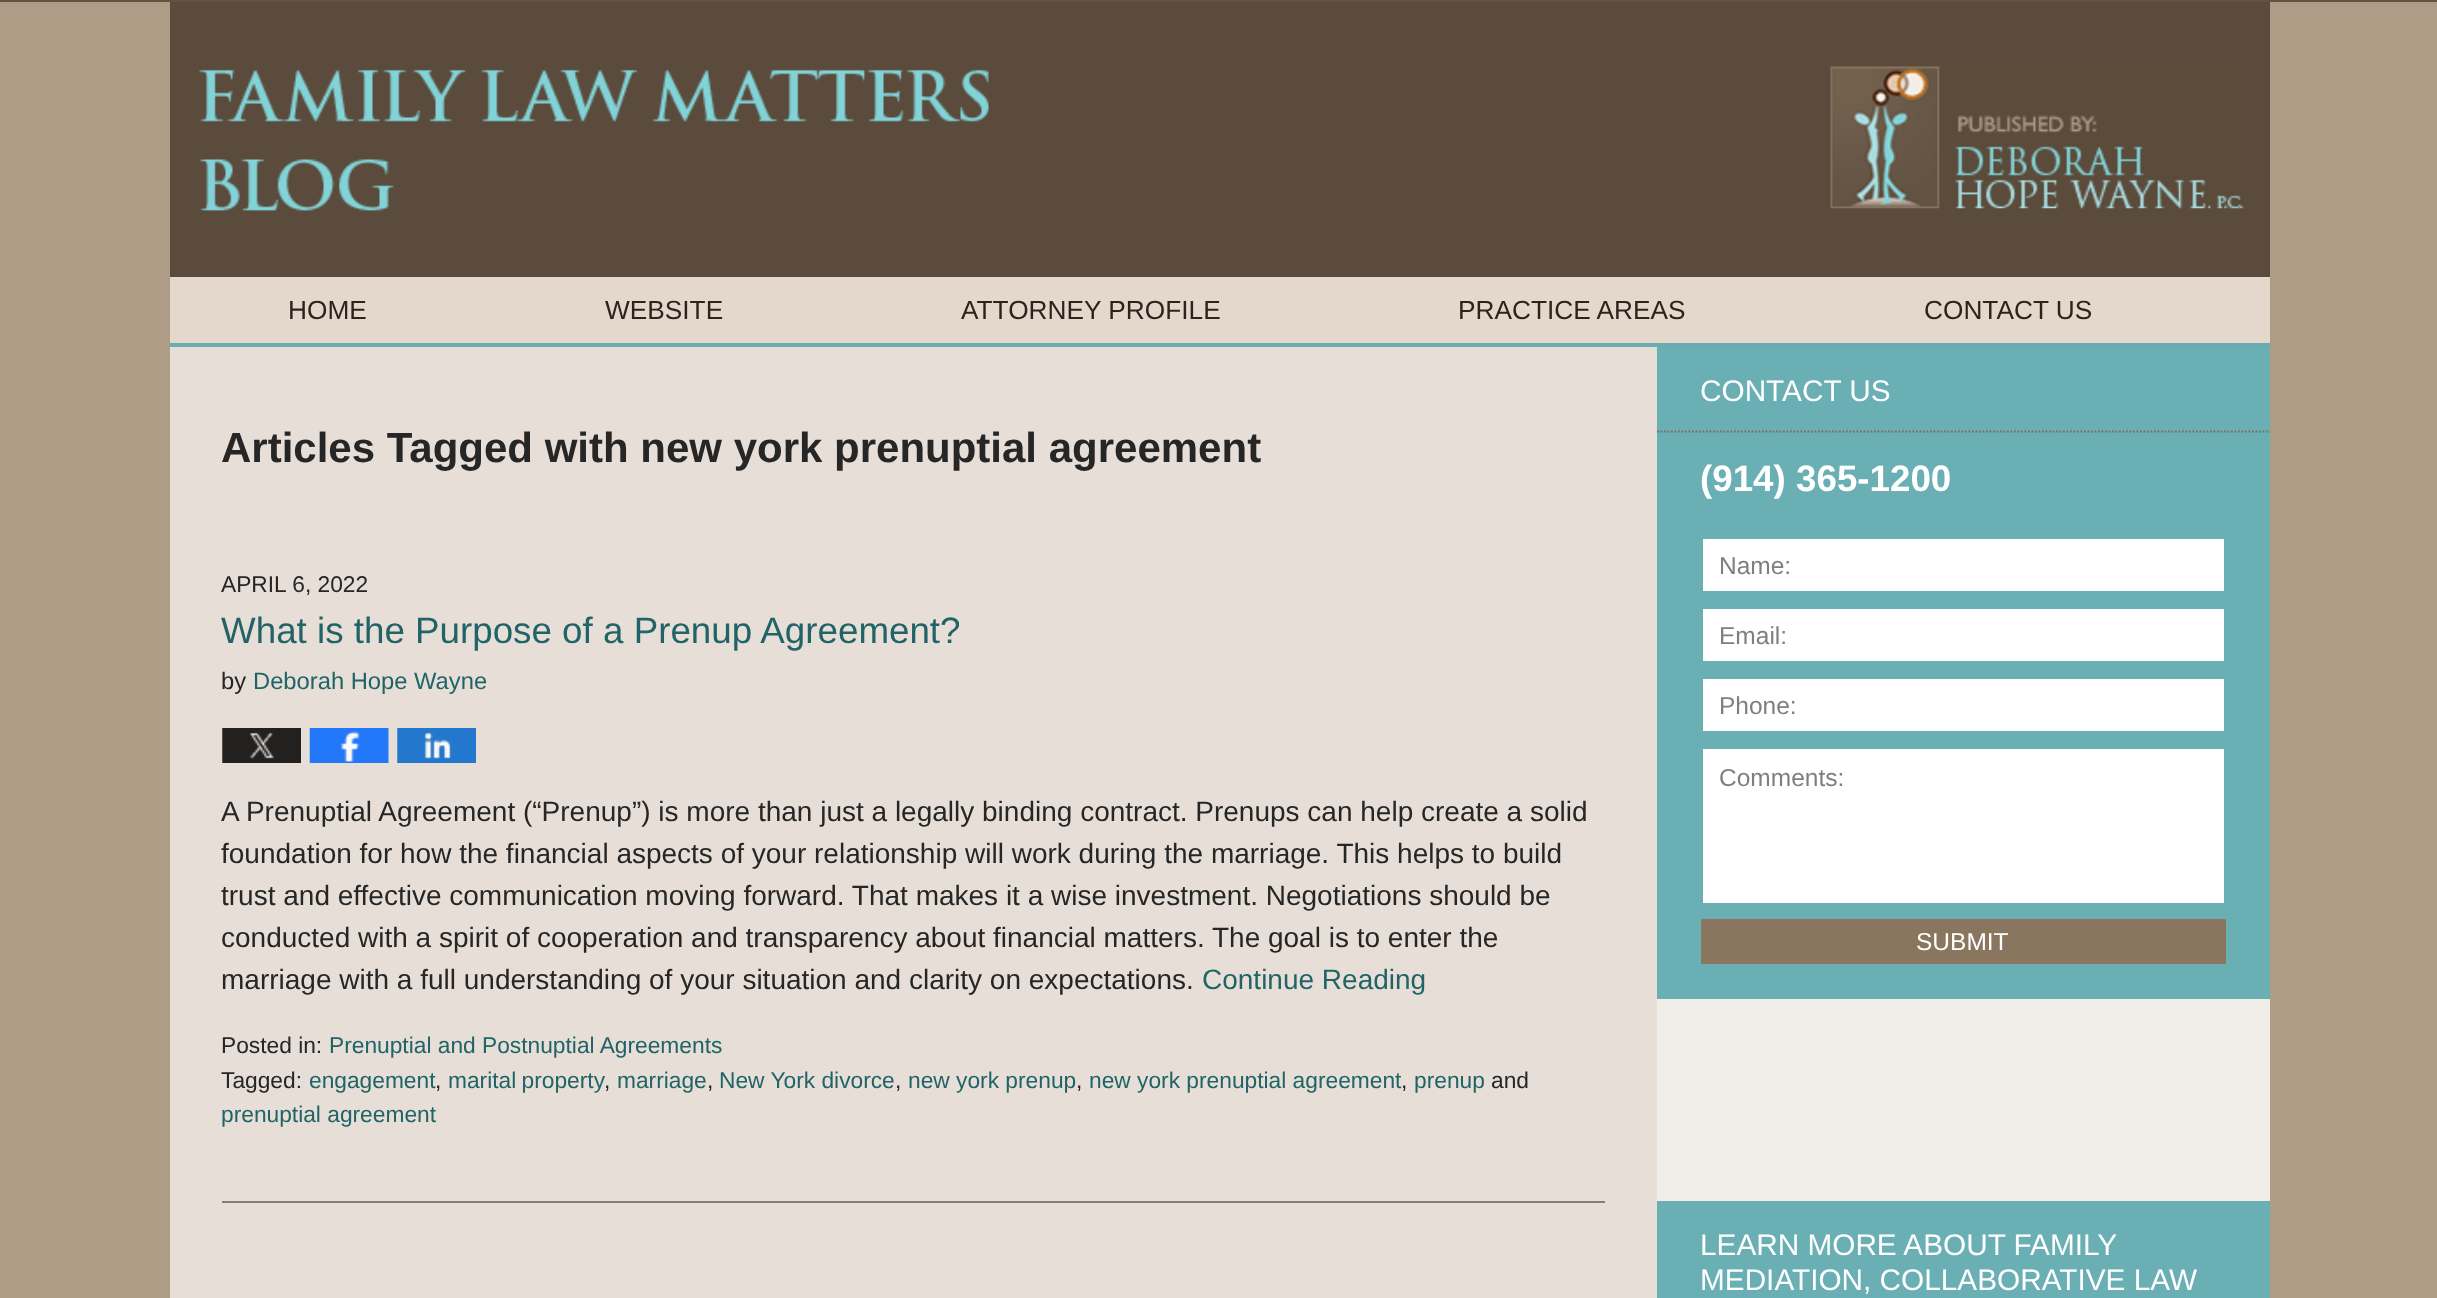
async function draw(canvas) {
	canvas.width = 2437;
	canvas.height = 1298;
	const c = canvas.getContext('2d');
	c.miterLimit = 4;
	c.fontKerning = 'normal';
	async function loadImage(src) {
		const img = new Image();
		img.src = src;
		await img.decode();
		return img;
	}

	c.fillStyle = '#af9c87';
	c.fillRect(0, 0, 2437, 1298);
	c.fillStyle = '#625243';
	c.fillRect(0, 0, 2437, 2);
	c.fillStyle = '#5b4b3c';
	c.fillRect(170, 2, 2100, 275);
	c.drawImage(await loadImage('img1.png'), 199, 69, 790, 142);
	c.drawImage(await loadImage('img2.png'), 1830, 66, 414, 143);
	c.fillStyle = '#e4d8cd';
	c.fillRect(170, 277, 2100, 66);
	c.fillStyle = '#69adb1';
	c.fillRect(170, 343, 2100, 4);
	c.font = '26.25px Liberation Sans';
	c.fillStyle = '#2c241b';
	for (const [text, x, y] of [
		['HOME', 288, 319],
		['WEBSITE', 605, 319],
		['ATTORNEY PROFILE', 961, 319],
		['PRACTICE AREAS', 1458, 319],
		['CONTACT US', 1924, 319],
	]) {
		c.fillText(text, x, y);
	}
	c.fillStyle = '#e7dfd7';
	c.fillRect(170, 347, 1487, 951);
	c.font = 'bold 42px Liberation Sans';
	c.fillStyle = '#262626';
	c.fillText('Articles Tagged with new york prenuptial agreement', 221, 462);
	c.fillStyle = '#7f7f7f';
	c.fillRect(222, 1201, 1383, 2);
	c.font = '22.75px Liberation Sans';
	c.fillStyle = '#262626';
	c.fillText('APRIL 6, 2022', 221, 592);
	c.font = '36.75px Liberation Sans';
	c.fillStyle = '#216468';
	c.fillText('What is the Purpose of a Prenup Agreement?', 221, 643);
	c.font = '23.75px Liberation Sans';
	c.fillStyle = '#262626';
	c.fillText('by', 221, 689);
	c.fillStyle = '#216468';
	c.fillText('Deborah Hope Wayne', 253, 689);
	c.drawImage(await loadImage('img3.png'), 222, 728, 79, 35);
	c.drawImage(await loadImage('img4.png'), 309, 728, 80, 35);
	c.drawImage(await loadImage('img5.png'), 397, 728, 79, 35);
	c.font = '28px Liberation Sans';
	c.fillStyle = '#262626';
	for (const [text, x, y] of [
		['A Prenuptial Agreement (“Prenup”) is more than just a legally binding contract. Prenups can help create a solid', 221, 821],
		['foundation for how the financial aspects of your relationship will work during the marriage. This helps to build', 221, 863],
		['trust and effective communication moving forward. That makes it a wise investment. Negotiations should be', 221, 905],
		['conducted with a spirit of cooperation and transparency about financial matters. The goal is to enter the', 221, 947],
		['marriage with a full understanding of your situation and clarity on expectations.', 221, 989],
	]) {
		c.fillText(text, x, y);
	}
	c.fillStyle = '#216468';
	c.fillText('Continue Reading', 1202, 989);
	c.font = '22.75px Liberation Sans';
	c.fillStyle = '#262626';
	c.fillText('Posted in:', 221, 1053);
	c.fillStyle = '#216468';
	c.fillText('Prenuptial and Postnuptial Agreements', 329, 1053);
	c.fillStyle = '#262626';
	c.fillText('Tagged:', 221, 1088);
	c.fillStyle = '#216468';
	c.fillText('engagement', 309, 1088);
	c.fillStyle = '#262626';
	c.fillText(',', 435, 1088);
	c.wordSpacing = '-1px';
	c.fillStyle = '#216468';
	c.fillText('marital property', 448, 1088);
	c.wordSpacing = '0px';
	c.fillStyle = '#262626';
	c.fillText(',', 604, 1088);
	c.fillStyle = '#216468';
	c.fillText('marriage', 617, 1088);
	c.fillStyle = '#262626';
	c.fillText(',', 707, 1088);
	c.fillStyle = '#216468';
	c.fillText('New York divorce', 719, 1088);
	c.fillStyle = '#262626';
	c.fillText(',', 895, 1088);
	c.fillStyle = '#216468';
	c.fillText('new york prenup', 908, 1088);
	c.fillStyle = '#262626';
	c.fillText(',', 1076, 1088);
	c.fillStyle = '#216468';
	c.fillText('new york prenuptial agreement', 1089, 1088);
	c.fillStyle = '#262626';
	c.fillText(',', 1401, 1088);
	c.fillStyle = '#216468';
	c.fillText('prenup', 1414, 1088);
	c.fillStyle = '#262626';
	c.fillText('and', 1491, 1088);
	c.fillStyle = '#216468';
	c.fillText('prenuptial agreement', 221, 1122);
	c.fillStyle = '#69afb3';
	c.fillRect(1657, 347, 613, 652);
	c.beginPath();
	c.moveTo(1657, 431.5);
	c.lineTo(2270, 431.5);
	c.strokeStyle = '#806d58';
	c.lineWidth = 1.8;
	c.setLineDash([1.75, 1.75]);
	c.stroke();
	c.font = '29.75px Liberation Sans';
	c.fillStyle = '#fff';
	c.fillText('CONTACT US', 1700, 401);
	c.font = 'bold 36.75px Liberation Sans';
	c.fillText('(914) 365-1200', 1700, 491);
	c.fillRect(1703, 539, 521, 52);
	c.font = '24.5px Liberation Sans';
	c.fillStyle = '#7f7f7f';
	c.fillText('Name:', 1719, 574);
	c.fillStyle = '#fff';
	c.fillRect(1703, 609, 521, 52);
	c.fillStyle = '#7f7f7f';
	c.fillText('Email:', 1719, 644);
	c.fillStyle = '#fff';
	c.fillRect(1703, 679, 521, 52);
	c.fillStyle = '#7f7f7f';
	c.fillText('Phone:', 1719, 714);
	c.fillStyle = '#fff';
	c.fillRect(1703, 749, 521, 154);
	c.fillStyle = '#7f7f7f';
	c.fillText('Comments:', 1719, 786);
	c.fillStyle = '#8a765f';
	c.beginPath();
	c.roundRect(1701, 919, 525, 45, 2);
	c.fill();
	c.fillStyle = '#8d7961';
	c.fillRect(1703, 961, 521, 1);
	c.beginPath();
	c.roundRect(1702, 920, 523, 43, 1);
	c.strokeStyle = '#8a765f';
	c.lineWidth = 2;
	c.setLineDash([]);
	c.stroke();
	c.fillStyle = '#fff';
	c.fillText('SUBMIT', 1916, 950);
	c.fillStyle = '#69afb3';
	c.fillRect(1657, 1201, 613, 97);
	c.font = '29.75px Liberation Sans';
	c.fillStyle = '#fff';
	c.fillText('LEARN MORE ABOUT FAMILY', 1700, 1255);
	c.fillText('MEDIATION, COLLABORATIVE LAW', 1700, 1290);
	c.fillStyle = '#f0ece8';
	c.fillRect(1657, 999, 613, 202);
}

draw(document.querySelector('canvas'));
